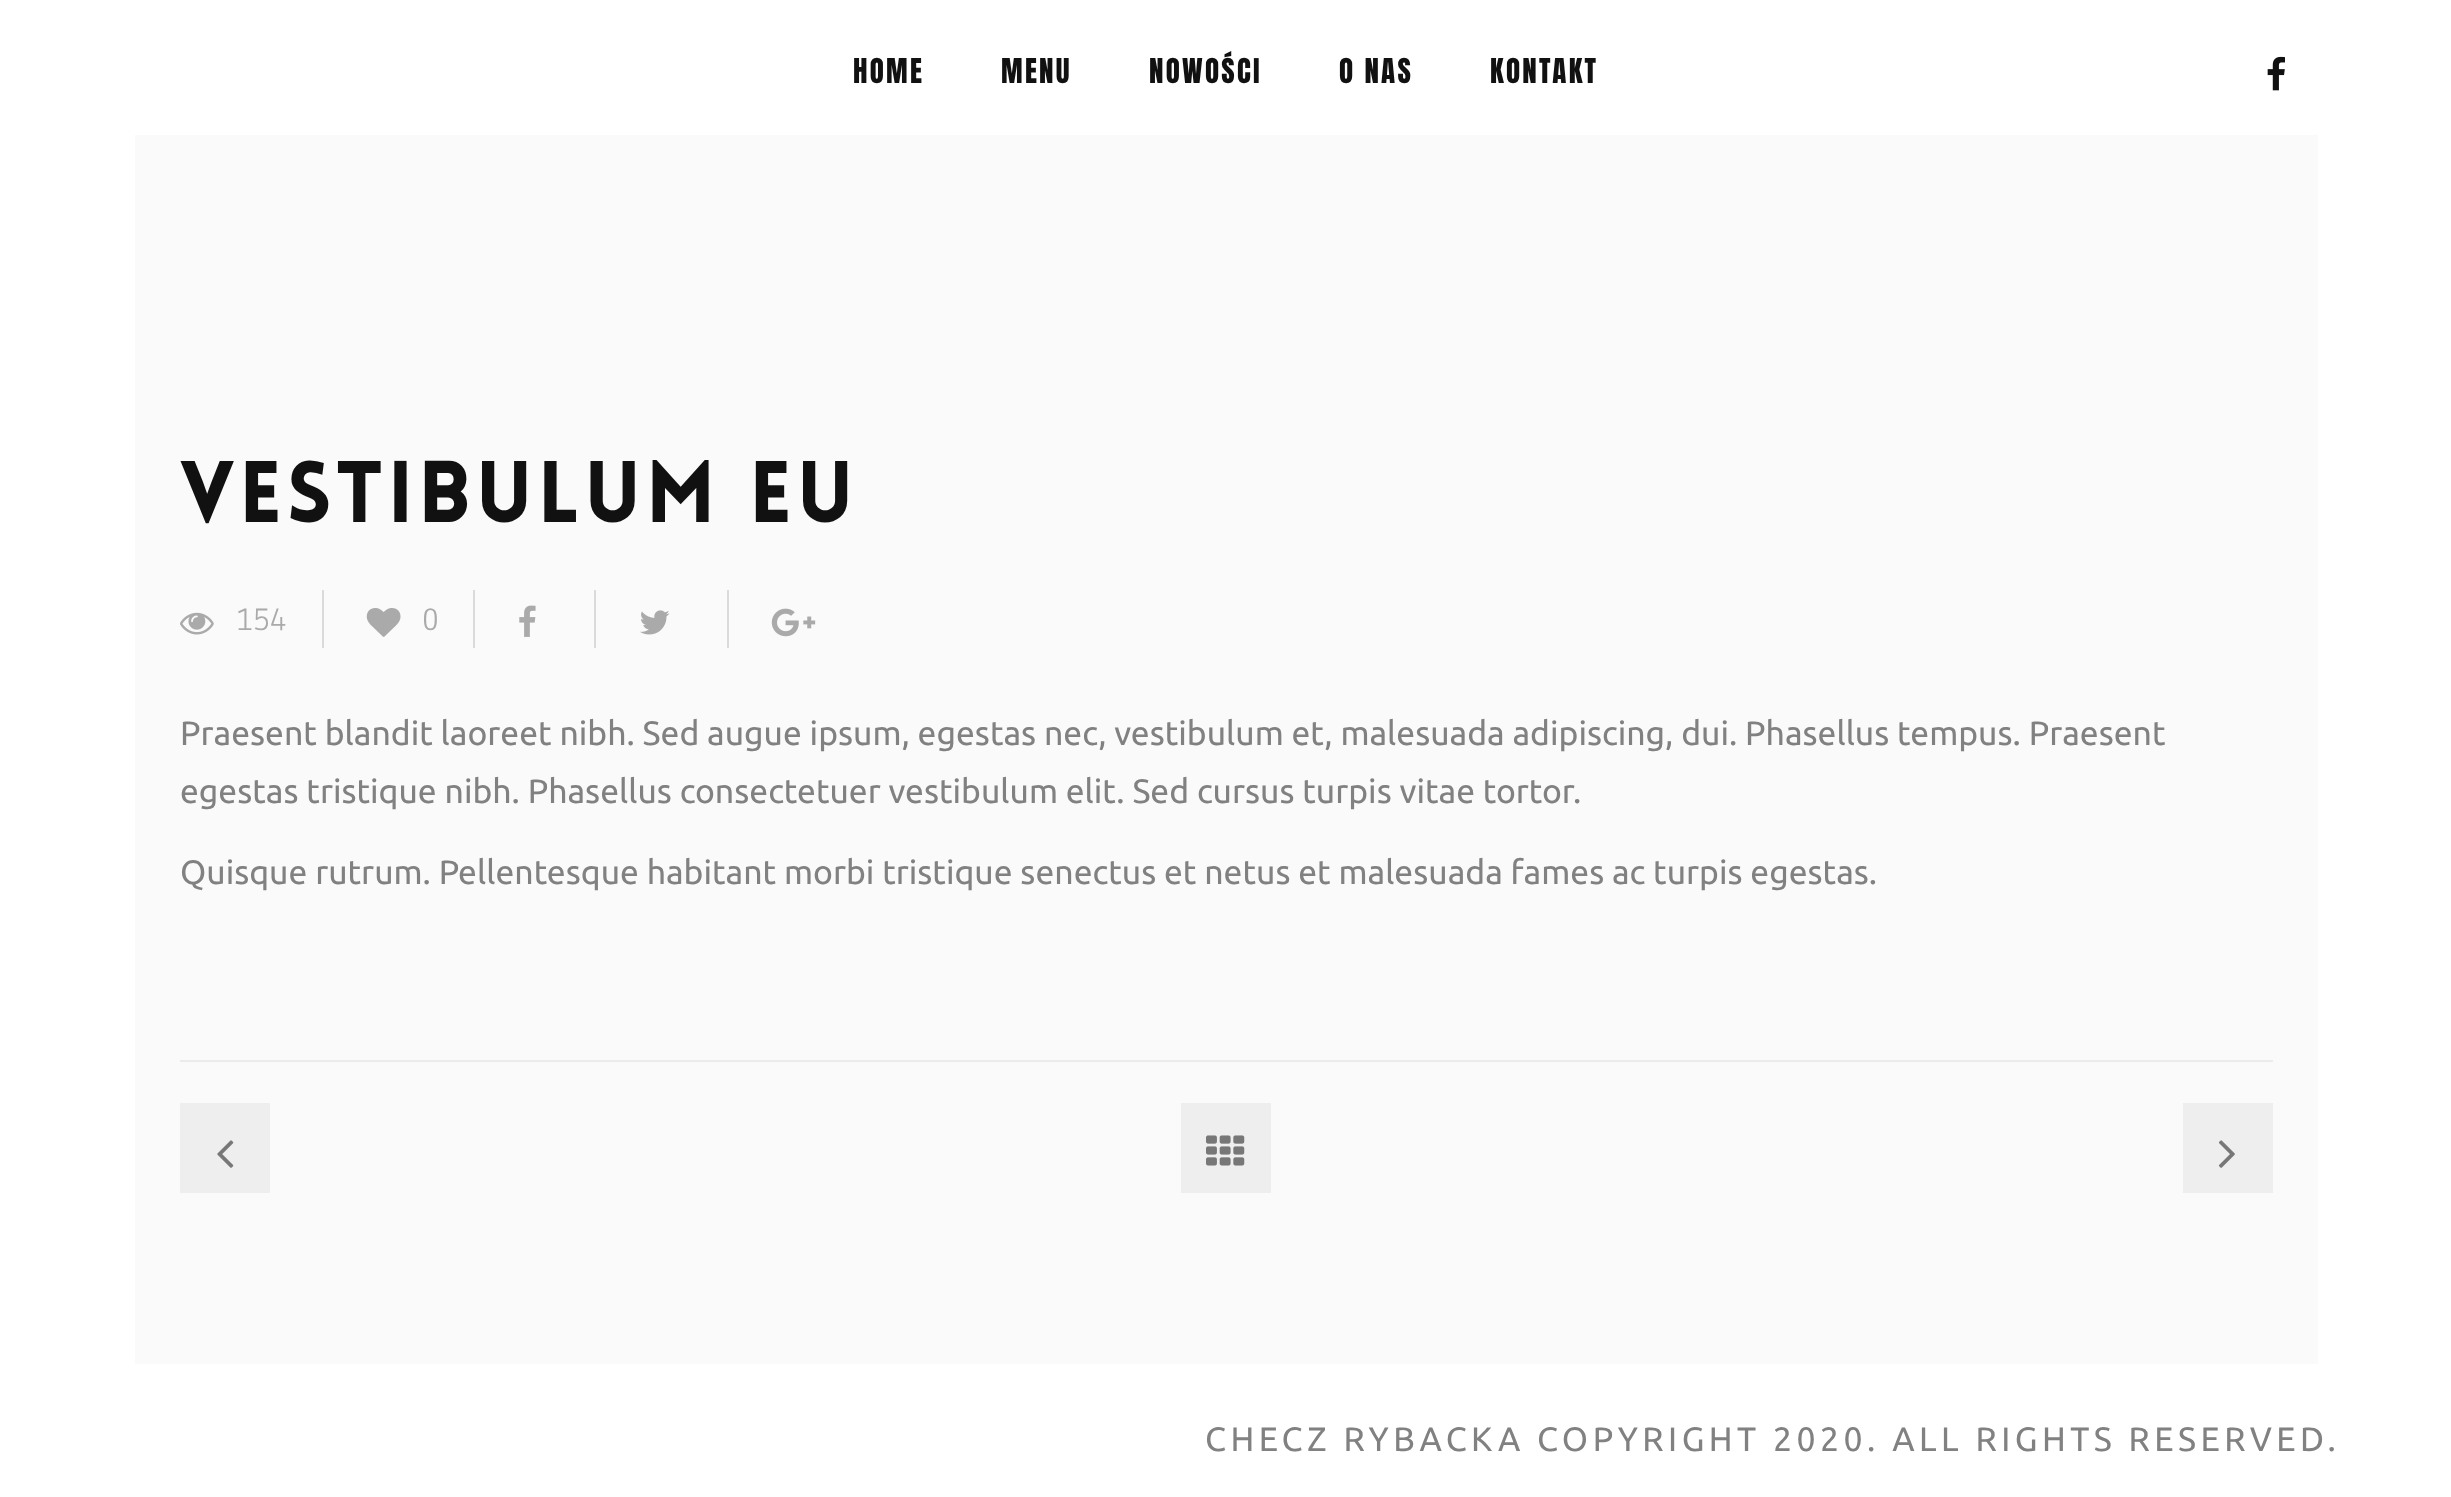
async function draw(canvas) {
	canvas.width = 2451;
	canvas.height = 1497;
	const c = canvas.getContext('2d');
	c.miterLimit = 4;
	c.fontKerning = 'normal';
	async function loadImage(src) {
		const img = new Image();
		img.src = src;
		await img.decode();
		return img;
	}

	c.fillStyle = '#fafafa';
	c.fillRect(0, 0, 2451, 1497);
	c.fillStyle = '#fff';
	c.fillRect(0, 0, 2451, 135);
	c.letterSpacing = '2.25px';
	c.font = '29px Anton';
	c.fillStyle = '#111';
	for (const [text, x, y] of [
		['HOME', 853, 83],
		['MENU', 1001, 83],
		['NOWOŚCI', 1149, 83],
		['O NAS', 1339, 83],
		['KONTAKT', 1490, 83],
	]) {
		c.fillText(text, x, y);
	}
	c.drawImage(await loadImage('img1.png'), 2267, 56, 18, 35);
	c.fillStyle = '#fff';
	c.fillRect(0, 135, 135, 1229);
	c.letterSpacing = '4.5px';
	c.font = '900 85.5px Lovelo';
	c.fillStyle = '#111';
	c.fillText('Vestibulum eu', 180, 522);
	c.fillStyle = '#dadada';
	c.fillRect(322, 590, 2, 58);
	c.drawImage(await loadImage('img2.png'), 180, 612, 34, 23);
	c.letterSpacing = '0px';
	c.font = '33.75px Lekton';
	c.fillStyle = '#aaa';
	c.fillText('154', 236, 630);
	c.fillStyle = '#dadada';
	c.fillRect(473, 590, 2, 58);
	c.drawImage(await loadImage('img3.png'), 366, 608, 35, 29);
	c.fillStyle = '#aaa';
	c.fillText('0', 422, 630);
	c.fillStyle = '#dadada';
	c.fillRect(594, 590, 2, 58);
	c.drawImage(await loadImage('img4.png'), 519, 605, 17, 32);
	c.fillRect(727, 590, 2, 58);
	c.drawImage(await loadImage('img5.png'), 640, 610, 30, 25);
	c.drawImage(await loadImage('img6.png'), 771, 608, 45, 29);
	c.font = '33.75px Ubuntu';
	c.fillStyle = '#818181';
	for (const [text, x, y] of [
		['Praesent blandit laoreet nibh. Sed augue ipsum, egestas nec, vestibulum et, malesuada adipiscing, dui. Phasellus tempus. Praesent', 180, 745],
		['egestas tristique nibh. Phasellus consectetuer vestibulum elit. Sed cursus turpis vitae tortor.', 180, 803],
		['Quisque rutrum. Pellentesque habitant morbi tristique senectus et netus et malesuada fames ac turpis egestas.', 180, 884],
	]) {
		c.fillText(text, x, y);
	}
	c.fillStyle = '#ebebeb';
	c.fillRect(180, 1060, 2093, 2);
	c.fillStyle = '#eee';
	c.fillRect(180, 1103, 90, 90);
	c.drawImage(await loadImage('img7.png'), 217, 1140, 17, 28);
	c.fillRect(1181, 1103, 90, 90);
	c.drawImage(await loadImage('img8.png'), 1206, 1135, 39, 31);
	c.fillRect(2183, 1103, 90, 90);
	c.drawImage(await loadImage('img9.png'), 2218, 1140, 17, 28);
	c.fillStyle = '#fff';
	c.fillRect(2318, 135, 133, 1229);
	c.fillRect(0, 1364, 2451, 133);
	c.letterSpacing = '4.5px';
	c.fillStyle = '#818181';
	c.fillText('CHECZ RYBACKA COPYRIGHT 2020. ALL RIGHTS RESERVED.', 1205, 1451);
}

draw(document.querySelector('canvas'));
